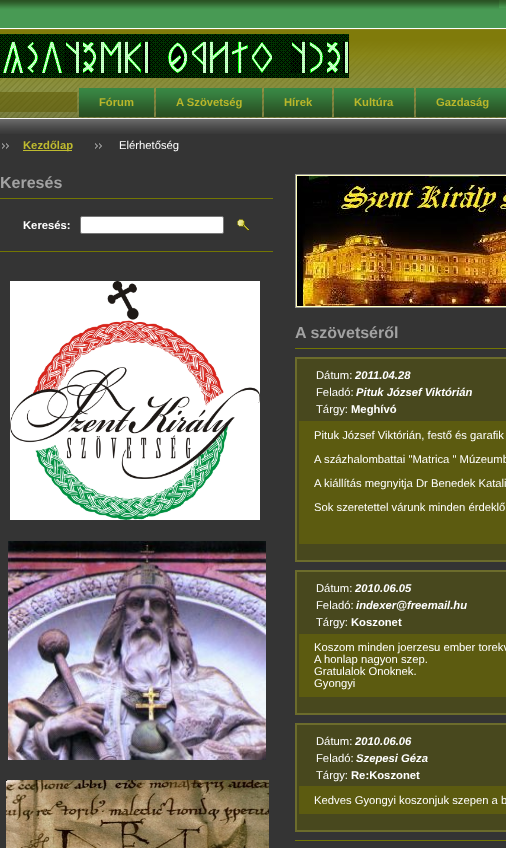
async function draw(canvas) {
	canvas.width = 506;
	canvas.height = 848;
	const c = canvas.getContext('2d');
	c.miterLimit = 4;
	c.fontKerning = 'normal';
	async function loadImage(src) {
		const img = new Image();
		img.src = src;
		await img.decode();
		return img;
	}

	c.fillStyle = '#343434';
	c.fillRect(0, 0, 506, 848);
	c.drawImage(await loadImage('img1.png'), 0, 0, 506, 118);
	c.drawImage(await loadImage('img2.png'), 0, 34, 349, 44);
	c.drawImage(await loadImage('img3.png'), 77, 82, 429, 36);
	c.drawImage(await loadImage('img4.png'), 79, 88, 75, 29);
	c.font = 'bold 11.25px Liberation Sans';
	c.fillStyle = '#b9b62b';
	c.fillText('Fórum', 99, 106);
	c.drawImage(await loadImage('img5.png'), 156, 88, 106, 29);
	c.fillText('A Szövetség', 176, 106);
	c.drawImage(await loadImage('img6.png'), 264, 88, 68, 29);
	c.fillText('Hírek', 284, 106);
	c.drawImage(await loadImage('img7.png'), 334, 88, 80, 29);
	c.fillText('Kultúra', 354, 106);
	c.drawImage(await loadImage('img8.png'), 416, 88, 90, 29);
	c.fillText('Gazdaság', 436, 106);
	c.drawImage(await loadImage('img9.png'), 0, 118, 506, 16);
	c.drawImage(await loadImage('img10.png'), 2, 143, 7, 6);
	c.fillStyle = '#bfbb2f';
	c.fillRect(23, 150, 49, 1);
	c.fillText('Kezdőlap', 23, 149);
	c.drawImage(await loadImage('img10.png'), 95, 143, 7, 6);
	c.font = '11.25px Liberation Sans';
	c.fillStyle = '#fff';
	c.fillText('Elérhetőség', 119, 149);
	c.font = 'bold 16px Liberation Sans';
	c.fillStyle = '#a2a2a2';
	c.fillText('Keresés', 0, 188);
	c.fillStyle = '#737602';
	c.fillRect(0, 198, 273, 1);
	c.fillRect(0, 251, 273, 1);
	c.font = 'bold 11.25px Liberation Sans';
	c.fillStyle = '#fff';
	c.fillText('Keresés:', 23, 229);
	c.beginPath();
	c.roundRect(80.5, 216.5, 143, 17, 1.5);
	c.fill();
	c.strokeStyle = '#767676';
	c.stroke();
	c.drawImage(await loadImage('img11.png'), 237, 219, 12, 12);
	c.drawImage(await loadImage('img12.png'), 10, 281, 250, 239);
	c.drawImage(await loadImage('img13.png'), 8, 541, 258, 219);
	c.drawImage(await loadImage('img14.png'), 6, 780, 263, 68);
	c.strokeStyle = '#939393';
	c.strokeRect(295.5, 174.5, 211, 133);
	c.strokeStyle = '#ffffbe';
	c.strokeRect(296.5, 175.5, 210, 131);
	c.drawImage(await loadImage('img15.png'), 297, 176, 209, 130);
	c.font = 'bold 16px Liberation Sans';
	c.fillStyle = '#a2a2a2';
	c.fillText('A szövetséről', 295, 338);
	c.fillStyle = '#737602';
	c.fillRect(295, 348, 211, 1);
	c.fillRect(295, 840, 211, 1);
	c.fillStyle = '#48481e';
	c.beginPath();
	c.rect(296, 358, 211, 203);
	c.fill();
	c.strokeStyle = '#6c6c2c';
	c.lineWidth = 2;
	c.stroke();
	c.font = '11.25px Liberation Sans';
	c.fillStyle = '#fff';
	c.fillText('Dátum:', 316, 379);
	c.font = 'italic bold 11.25px Liberation Sans';
	c.fillText('2011.04.28', 355, 379);
	c.font = '11.25px Liberation Sans';
	c.fillText('Feladó:', 316, 396);
	c.font = 'italic bold 11.25px Liberation Sans';
	c.fillText('Pituk József Viktórián', 356, 396);
	c.font = '11.25px Liberation Sans';
	c.fillText('Tárgy:', 316, 413);
	c.font = 'bold 11.25px Liberation Sans';
	c.fillText('Meghívó', 351, 413);
	c.fillStyle = '#5c5b10';
	c.fillRect(299, 421, 207, 123);
	c.font = '11.25px Liberation Sans';
	c.fillStyle = '#fff';
	for (const [text, x, y] of [
		['Pituk József Viktórián, festő és garafik', 314, 439],
		['A százhalombattai "Matrica " Múzeumb', 314, 463],
		['A kiállítás megnyitja Dr Benedek Katali', 314, 487],
		['Sok szeretettel várunk minden érdeklő', 314, 511],
	]) {
		c.fillText(text, x, y);
	}
	c.fillStyle = '#48481e';
	c.beginPath();
	c.rect(296, 571, 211, 143);
	c.fill();
	c.stroke();
	c.fillStyle = '#fff';
	c.fillText('Dátum:', 316, 592);
	c.font = 'italic bold 11.25px Liberation Sans';
	c.fillText('2010.06.05', 355, 592);
	c.font = '11.25px Liberation Sans';
	c.fillText('Feladó:', 316, 609);
	c.font = 'italic bold 11.25px Liberation Sans';
	c.fillText('indexer@freemail.hu', 356, 609);
	c.font = '11.25px Liberation Sans';
	c.fillText('Tárgy:', 316, 626);
	c.font = 'bold 11.25px Liberation Sans';
	c.fillText('Koszonet', 351, 626);
	c.fillStyle = '#5c5b10';
	c.fillRect(299, 634, 207, 63);
	c.font = '11.25px Liberation Sans';
	c.fillStyle = '#fff';
	for (const [text, x, y] of [
		['Koszom minden joerzesu ember torekv', 314, 651],
		['A honlap nagyon szep.', 314, 663],
		['Gratulalok Onoknek.', 314, 675],
		['Gyongyi', 314, 687],
	]) {
		c.fillText(text, x, y);
	}
	c.fillStyle = '#48481e';
	c.beginPath();
	c.rect(296, 724, 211, 107);
	c.fill();
	c.stroke();
	c.fillStyle = '#fff';
	c.fillText('Dátum:', 316, 745);
	c.font = 'italic bold 11.25px Liberation Sans';
	c.fillText('2010.06.06', 355, 745);
	c.font = '11.25px Liberation Sans';
	c.fillText('Feladó:', 316, 762);
	c.font = 'italic bold 11.25px Liberation Sans';
	c.fillText('Szepesi Géza', 356, 762);
	c.font = '11.25px Liberation Sans';
	c.fillText('Tárgy:', 316, 779);
	c.font = 'bold 11.25px Liberation Sans';
	c.fillText('Re:Koszonet', 351, 779);
	c.fillStyle = '#5c5b10';
	c.fillRect(299, 786, 207, 28);
	c.font = '11.25px Liberation Sans';
	c.fillStyle = '#fff';
	c.fillText('Kedves Gyongyi koszonjuk szepen a b', 314, 804);
}

draw(document.querySelector('canvas'));
